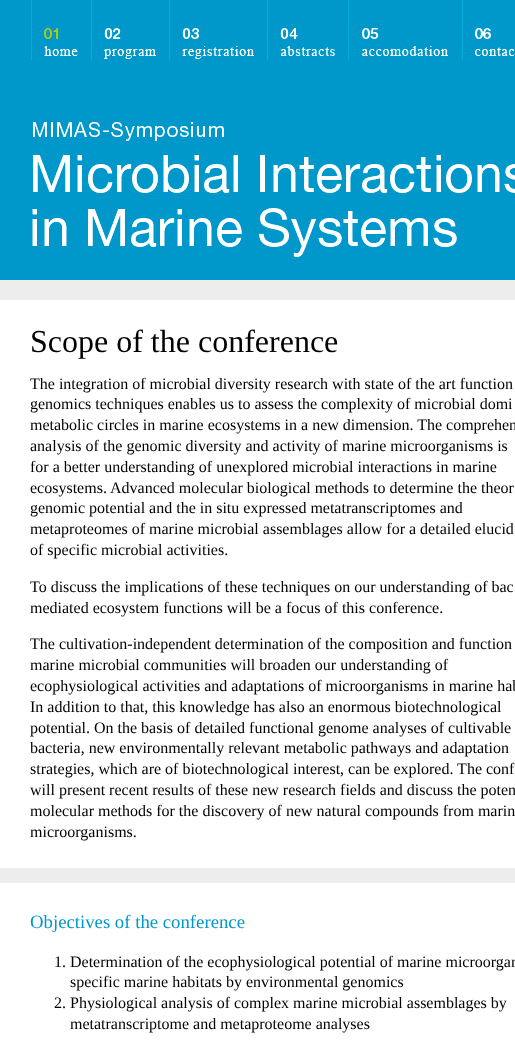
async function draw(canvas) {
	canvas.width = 515;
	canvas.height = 1044;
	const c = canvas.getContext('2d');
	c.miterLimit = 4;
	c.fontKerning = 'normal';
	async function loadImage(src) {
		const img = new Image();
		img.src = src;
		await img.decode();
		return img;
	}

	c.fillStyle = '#eeeded';
	c.fillRect(0, 0, 515, 1044);
	c.fillStyle = '#0098cb';
	c.fillRect(0, 0, 515, 280);
	c.drawImage(await loadImage('img1.png'), 31, 0, 47, 60);
	c.drawImage(await loadImage('img2.png'), 91, 0, 65, 60);
	c.drawImage(await loadImage('img3.png'), 169, 0, 85, 60);
	c.drawImage(await loadImage('img4.png'), 267, 0, 68, 60);
	c.drawImage(await loadImage('img5.png'), 348, 0, 100, 60);
	c.drawImage(await loadImage('img6.png'), 462, 0, 53, 60);
	c.drawImage(await loadImage('img7.png'), 32, 122, 483, 135);
	c.fillStyle = '#fff';
	c.fillRect(0, 300, 515, 568);
	c.font = '32px Liberation Serif';
	c.fillStyle = '#000';
	c.fillText('Scope of the conference', 30, 352);
	c.font = '16px Liberation Serif';
	for (const [text, x, y] of [
		['The integration of microbial diversity research with state of the art function', 30, 389],
		['genomics techniques enables us to assess the complexity of microbial domi', 30, 409],
		['metabolic circles in marine ecosystems in a new dimension. The comprehen', 30, 430],
		['analysis of the genomic diversity and activity of marine microorganisms is', 30, 451],
		['for a better understanding of unexplored microbial interactions in marine', 30, 472],
		['ecosystems.', 30, 493],
		['Advanced molecular biological methods to determine the theor', 110, 493],
		['genomic potential and the in situ expressed metatranscriptomes and', 30, 513],
		['metaproteomes of marine microbial assemblages allow for a detailed elucid', 30, 534],
		['of specific microbial activities.', 30, 555],
		['To discuss the implications of these techniques on our understanding of bac', 30, 592],
		['mediated ecosystem functions will be a focus of this conference.', 30, 613],
		['The cultivation-independent determination of the composition and function', 30, 649],
		['marine microbial communities will broaden our understanding of', 30, 670],
		['ecophysiological activities and adaptations of microorganisms in marine hab', 30, 691],
		['In addition to that, this knowledge has also an enormous biotechnological', 30, 712],
		['potential. On the basis of detailed functional genome analyses of cultivable', 30, 733],
		['bacteria, new environmentally relevant metabolic pathways and adaptation', 30, 753],
		['strategies, which are of biotechnological interest, can be explored. The conf', 30, 774],
		['will present recent results of these new research fields and discuss the poten', 30, 795],
		['molecular methods for the discovery of new natural compounds from marin', 30, 816],
		['microorganisms.', 30, 837],
	]) {
		c.fillText(text, x, y);
	}
	c.fillStyle = '#fff';
	c.fillRect(0, 883, 515, 161);
	c.font = '18.75px Liberation Serif';
	c.fillStyle = '#0098cb';
	c.fillText('Objectives of the conference', 30, 928);
	c.font = '16px Liberation Serif';
	c.fillStyle = '#000';
	for (const [text, x, y] of [
		['1. Determination of the ecophysiological potential of marine microorgan', 54, 967],
		['specific marine habitats by environmental genomics', 70, 987],
		['2. Physiological analysis of complex marine microbial assemblages by', 54, 1008],
		['metatranscriptome and metaproteome analyses', 70, 1029],
	]) {
		c.fillText(text, x, y);
	}
}

draw(document.querySelector('canvas'));
